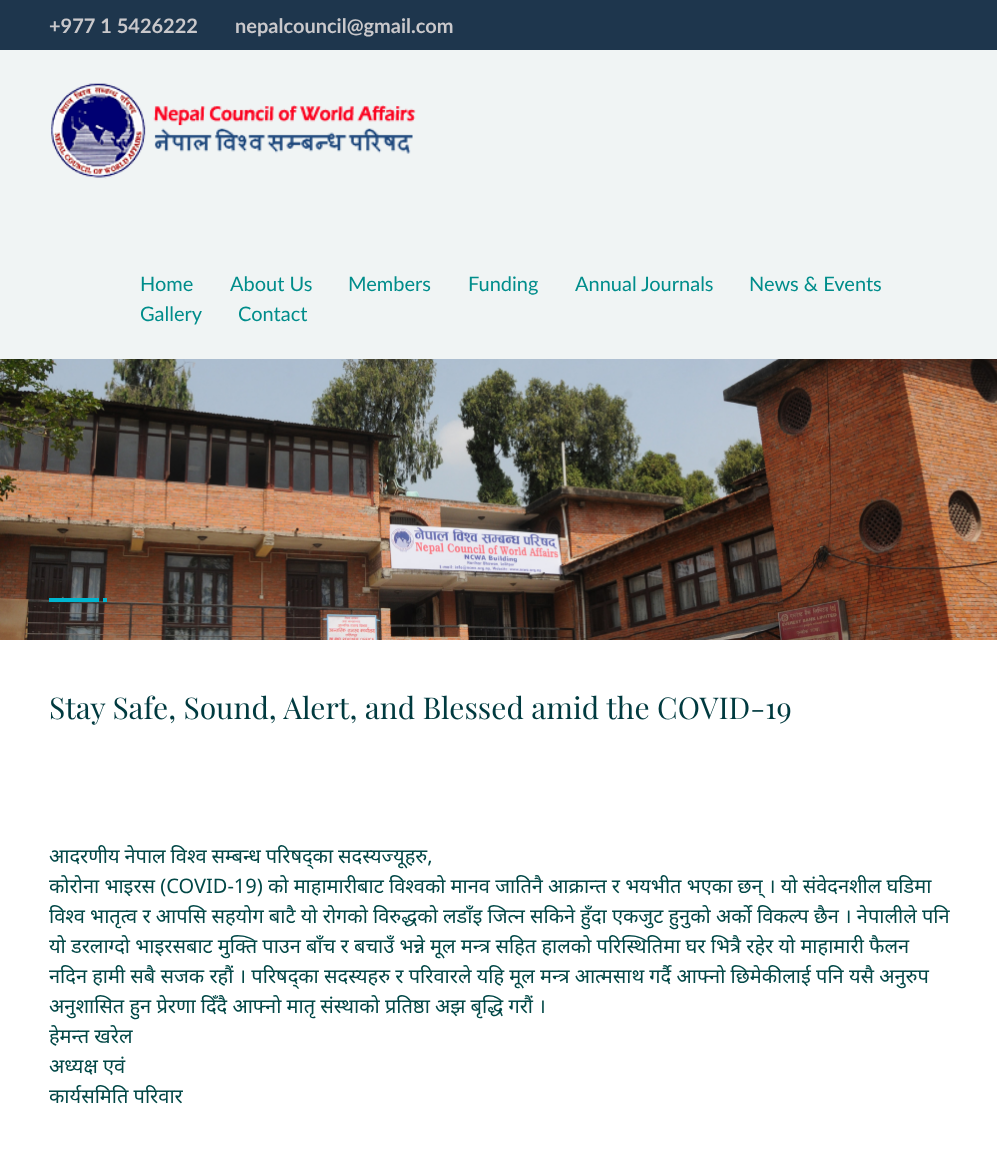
async function draw(canvas) {
	canvas.width = 997;
	canvas.height = 1165;
	const c = canvas.getContext('2d');
	c.miterLimit = 4;
	c.fontKerning = 'normal';
	async function loadImage(src) {
		const img = new Image();
		img.src = src;
		await img.decode();
		return img;
	}

	c.fillStyle = '#fff';
	c.fillRect(0, 0, 997, 1165);
	c.fillStyle = '#1e364d';
	c.fillRect(0, 0, 997, 50);
	c.font = 'bold 20px Lato';
	c.fillStyle = '#c9c8cb';
	c.fillText('+977 1 5426222', 49, 33);
	c.fillText('nepalcouncil@gmail.com', 235, 33);
	c.fillStyle = '#f0f4f4';
	c.fillRect(0, 50, 997, 309);
	c.drawImage(await loadImage('img1.png'), 51, 83, 365, 96);
	c.font = '20px Lato';
	c.fillStyle = '#008d8b';
	for (const [text, x, y] of [
		['Home', 140, 291],
		['About Us', 230, 291],
		['Members', 348, 291],
		['Funding', 468, 291],
		['Annual Journals', 575, 291],
		['News & Events', 749, 291],
		['Gallery', 140, 321],
		['Contact', 238, 321],
	]) {
		c.fillText(text, x, y);
	}
	c.drawImage(await loadImage('img2.png'), 0, 359, 997, 281);
	c.fillStyle = '#00b5cf';
	c.fillRect(49, 598, 50, 4);
	c.fillRect(103, 598, 4, 4);
	c.font = '30px Playfair Display';
	c.fillStyle = '#003a3f';
	c.fillText('Stay Safe, Sound, Alert, and Blessed amid the COVID-19', 49, 719);
	c.wordSpacing = '-0.25px';
	c.font = '20px Noto Sans';
	c.fillStyle = '#014746';
	c.fillText('आदरणीय नेपाल विश्व सम्बन्ध परिषद्का सदस्यज्यूहरु,', 49, 863);
	c.wordSpacing = '0px';
	for (const [text, x, y] of [
		['कोरोना भाइरस (COVID-19) को माहामारीबाट विश्वको मानव जातिनै आक्रान्त र भयभीत भएका छन् । यो संवेदनशील घडिमा', 49, 893],
		['विश्व भातृत्व र आपसि सहयोग बाटै यो रोगको विरुद्धको लडाँइ जित्न सकिने हुँदा एकजुट हुनुको अर्को विकल्प छैन । नेपालीले पनि', 49, 923],
		['यो डरलाग्दो भाइरसबाट मुक्ति पाउन बाँच र बचाउँ भन्ने मूल मन्त्र सहित हालको परिस्थितिमा घर भित्रै रहेर यो माहामारी फैलन', 49, 953],
		['नदिन हामी सबै सजक रहौं । परिषद्का सदस्यहरु र परिवारले यहि मूल मन्त्र आत्मसाथ गर्दै आफ्नो छिमेकीलाई पनि यसै अनुरुप', 49, 983],
		['अनुशासित हुन प्रेरणा दिँदै आफ्नो मातृ संस्थाको प्रतिष्ठा अझ बृद्धि गरौं ।', 49, 1013],
		['हेमन्त खरेल', 49, 1043],
		['अध्यक्ष एवं', 49, 1073],
		['कार्यसमिति परिवार', 49, 1103],
	]) {
		c.fillText(text, x, y);
	}
}

draw(document.querySelector('canvas'));
